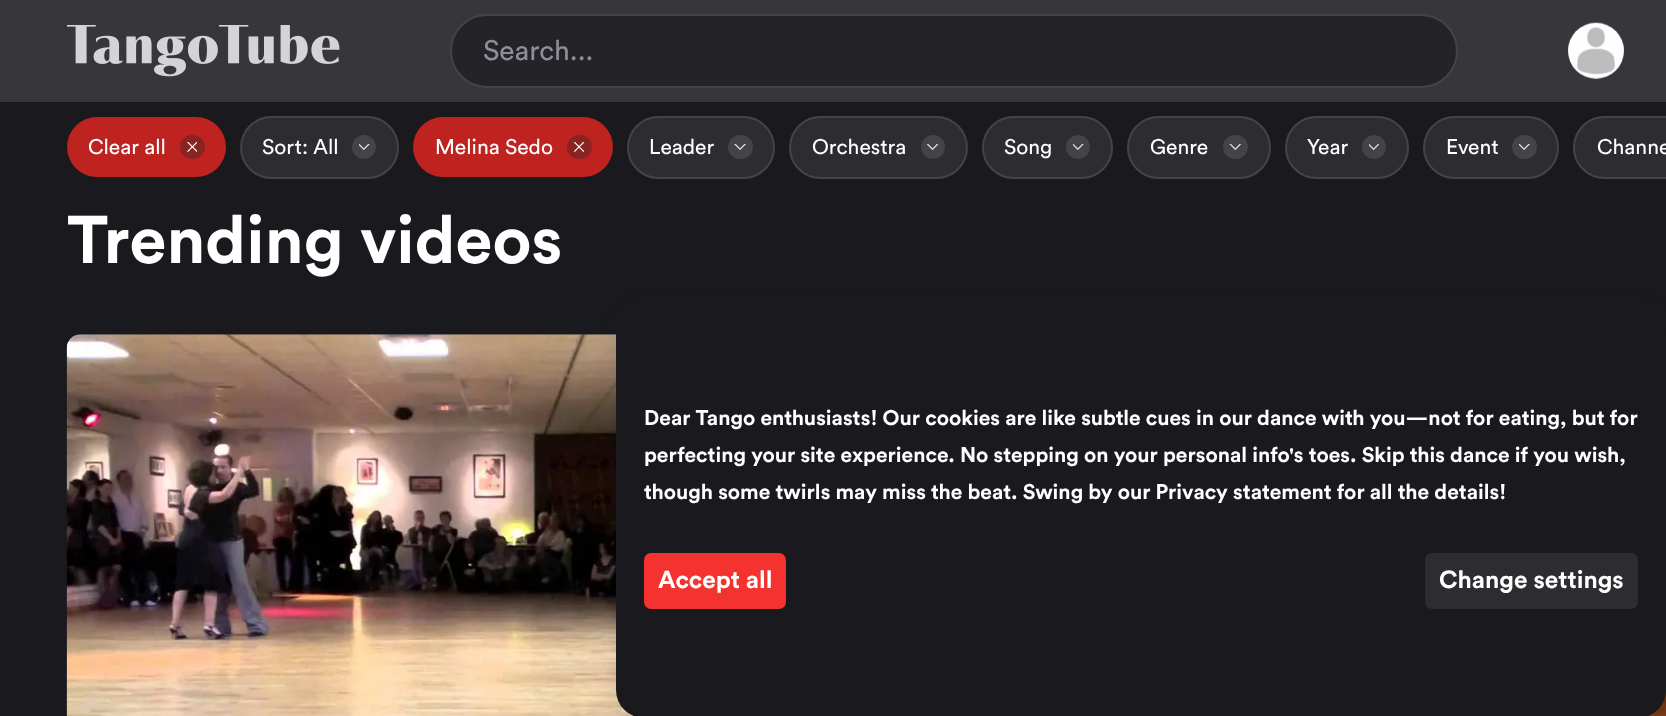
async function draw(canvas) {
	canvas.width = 1666;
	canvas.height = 716;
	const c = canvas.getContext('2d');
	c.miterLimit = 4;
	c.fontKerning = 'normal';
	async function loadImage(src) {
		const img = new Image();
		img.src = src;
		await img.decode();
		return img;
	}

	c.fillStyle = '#1a1a1e';
	c.fillRect(0, 0, 1666, 716);
	c.fillStyle = '#36363b';
	c.fillRect(0, 0, 1666, 102);
	c.drawImage(await loadImage('img1.png'), 67, 25, 273, 52);
	c.fillStyle = '#242428';
	c.beginPath();
	c.roundRect(451, 15, 1006, 72, 36);
	c.fill();
	c.strokeStyle = '#43434a';
	c.lineWidth = 2;
	c.stroke();
	c.font = '28px Circular';
	c.fillStyle = '#8e8e9a';
	c.fillText('Search...', 483, 60);
	c.drawImage(await loadImage('img2.png'), 1568, 22, 56, 57);
	c.fillStyle = '#bf2320';
	c.beginPath();
	c.roundRect(67, 117, 159, 60, 30);
	c.fill();
	c.font = '21px Circular';
	c.fillStyle = '#fff';
	c.fillText('Clear all', 88, 154);
	c.fillStyle = '#8a2423';
	c.beginPath();
	c.roundRect(180, 135, 25, 24, 12);
	c.fill();
	c.drawImage(await loadImage('img3.png'), 187, 142, 10, 10);
	c.fillStyle = '#2c2c31';
	c.beginPath();
	c.roundRect(241, 117, 157, 61, 30.5);
	c.fill();
	c.stroke();
	c.fillStyle = '#fff';
	c.fillText('Sort: All', 262, 154);
	c.fillStyle = '#43434a';
	c.beginPath();
	c.arc(364, 147, 12, 0, 2 * Math.PI);
	c.fill();
	c.drawImage(await loadImage('img4.png'), 359, 144, 11, 6);
	c.fillStyle = '#bf2320';
	c.beginPath();
	c.roundRect(413, 117, 200, 60, 30);
	c.fill();
	c.fillStyle = '#fff';
	c.fillText('Melina Sedo', 435, 154);
	c.fillStyle = '#8a2423';
	c.beginPath();
	c.roundRect(567, 135, 25, 24, 12);
	c.fill();
	c.drawImage(await loadImage('img5.png'), 574, 142, 10, 10);
	c.fillStyle = '#2c2c31';
	c.beginPath();
	c.roundRect(628, 117, 146, 61, 30.5);
	c.fill();
	c.stroke();
	c.fillStyle = '#fff';
	c.fillText('Leader', 649, 154);
	c.fillStyle = '#43434a';
	c.beginPath();
	c.roundRect(728, 135, 25, 24, 12);
	c.fill();
	c.drawImage(await loadImage('img6.png'), 734, 144, 12, 6);
	c.fillStyle = '#2c2c31';
	c.beginPath();
	c.roundRect(790, 117, 177, 61, 30.5);
	c.fill();
	c.stroke();
	c.fillStyle = '#fff';
	c.fillText('Orchestra', 812, 154);
	c.fillStyle = '#43434a';
	c.beginPath();
	c.arc(933, 147, 12, 0, 2 * Math.PI);
	c.fill();
	c.drawImage(await loadImage('img7.png'), 927, 144, 11, 6);
	c.fillStyle = '#2c2c31';
	c.beginPath();
	c.roundRect(983, 117, 129, 61, 30.5);
	c.fill();
	c.stroke();
	c.fillStyle = '#fff';
	c.fillText('Song', 1004, 154);
	c.fillStyle = '#43434a';
	c.beginPath();
	c.arc(1078, 147, 12, 0, 2 * Math.PI);
	c.fill();
	c.drawImage(await loadImage('img4.png'), 1073, 144, 11, 6);
	c.fillStyle = '#2c2c31';
	c.beginPath();
	c.roundRect(1128, 117, 142, 61, 30.5);
	c.fill();
	c.stroke();
	c.fillStyle = '#fff';
	c.fillText('Genre', 1150, 154);
	c.fillStyle = '#43434a';
	c.beginPath();
	c.roundRect(1223, 135, 25, 24, 12);
	c.fill();
	c.drawImage(await loadImage('img8.png'), 1229, 144, 12, 6);
	c.fillStyle = '#2c2c31';
	c.beginPath();
	c.roundRect(1286, 117, 122, 61, 30.5);
	c.fill();
	c.stroke();
	c.fillStyle = '#fff';
	c.fillText('Year', 1307, 154);
	c.fillStyle = '#43434a';
	c.beginPath();
	c.arc(1374, 147, 12, 0, 2 * Math.PI);
	c.fill();
	c.drawImage(await loadImage('img9.png'), 1369, 144, 10, 6);
	c.fillStyle = '#2c2c31';
	c.beginPath();
	c.roundRect(1424, 117, 134, 61, 30.5);
	c.fill();
	c.stroke();
	c.fillStyle = '#fff';
	c.fillText('Event', 1446, 154);
	c.fillStyle = '#43434a';
	c.beginPath();
	c.roundRect(1512, 135, 25, 24, 12);
	c.fill();
	c.drawImage(await loadImage('img10.png'), 1519, 144, 11, 6);
	c.fillStyle = '#2c2c31';
	c.beginPath();
	c.roundRect(1573, 116, 93, 63, [31.5, 0, 0, 31.5]);
	c.fill();
	c.beginPath();
	c.roundRect(1574, 117, 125, 61, 30.5);
	c.stroke();
	c.fillStyle = '#fff';
	c.fillText('Channe', 1597, 154);
	c.font = 'bold 66.75px Circular';
	c.fillText('Trending videos', 67, 263);
	c.fillStyle = '#36363b';
	c.beginPath();
	c.roundRect(67, 334, 875, 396, 14);
	c.fill();
	c.drawImage(await loadImage('img11.png'), 66, 334, 568, 382);
	c.drawImage(await loadImage('img12.png'), 1648, 690, 18, 26);
	c.fillStyle = '#141a3029';
	c.filter = 'blur(10.5px)';
	c.beginPath();
	c.roundRect(618, 312, 1046, 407, 26);
	c.fill();
	c.filter = 'none';
	c.fillStyle = '#1a1a1e';
	c.beginPath();
	c.roundRect(616, 306, 1050, 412, 28);
	c.fill();
	c.font = 'bold 21px Circular';
	c.fillStyle = '#fff';
	for (const [text, x, y] of [
		['Dear Tango enthusiasts! Our cookies are like subtle cues in our dance with you—not for eating, but for', 644, 425],
		['perfecting your site experience. No stepping on your personal info\'s toes. Skip this dance if you wish,', 644, 462],
		['though some twirls may miss the beat. Swing by our Privacy statement for all the details!', 644, 499],
	]) {
		c.fillText(text, x, y);
	}
	c.fillStyle = '#f43230';
	c.beginPath();
	c.roundRect(644, 553, 142, 56, 7);
	c.fill();
	c.font = 'bold 24.5px Circular';
	c.fillStyle = '#fff';
	c.fillText('Accept all', 658, 588);
	c.fillStyle = '#2c2c31';
	c.beginPath();
	c.roundRect(1425, 553, 213, 56, 7);
	c.fill();
	c.fillStyle = '#fff';
	c.fillText('Change settings', 1439, 588);
}

draw(document.querySelector('canvas'));
